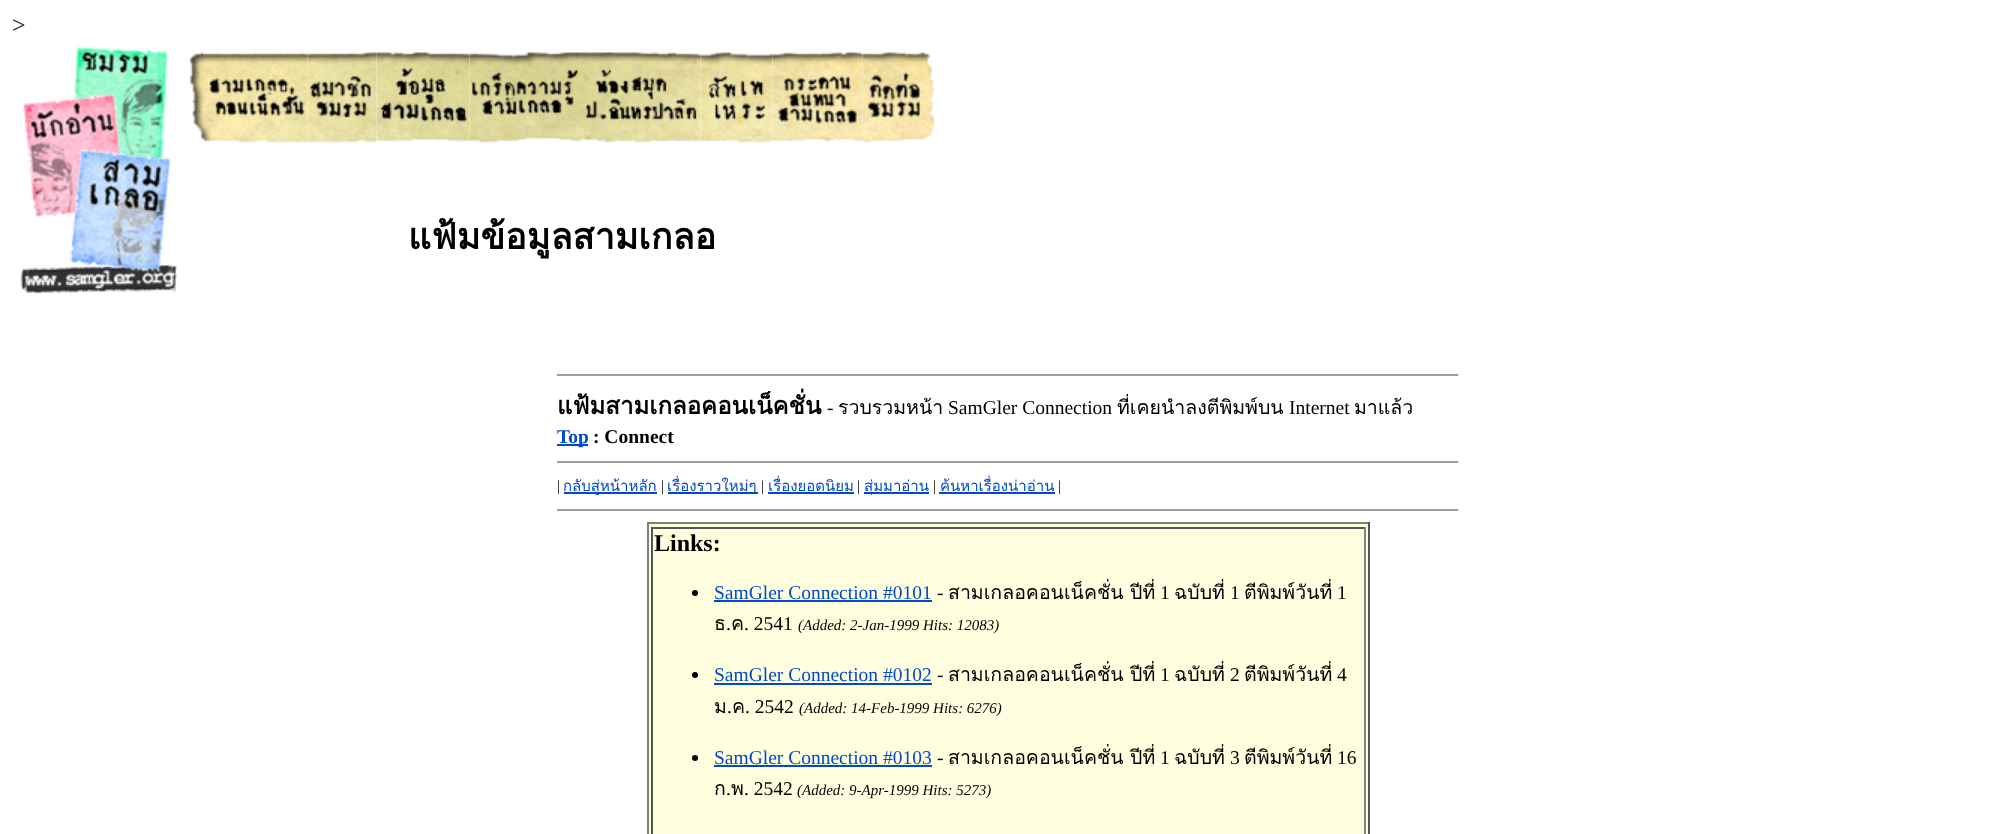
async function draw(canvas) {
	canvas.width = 2016;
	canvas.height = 834;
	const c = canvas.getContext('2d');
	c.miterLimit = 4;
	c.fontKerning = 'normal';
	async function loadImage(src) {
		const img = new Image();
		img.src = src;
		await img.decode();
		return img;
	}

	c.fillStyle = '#fff';
	c.fillRect(0, 0, 2016, 834);
	c.font = '24px Liberation Serif';
	c.fillStyle = '#000';
	c.fillText('>', 12, 33);
	c.drawImage(await loadImage('img1.png'), 20, 45, 158, 249);
	c.drawImage(await loadImage('img2.png'), 189, 52, 119, 91);
	c.drawImage(await loadImage('img3.png'), 307, 52, 70, 91);
	c.drawImage(await loadImage('img4.png'), 376, 52, 94, 90);
	c.drawImage(await loadImage('img5.png'), 469, 52, 113, 91);
	c.drawImage(await loadImage('img6.png'), 582, 52, 119, 91);
	c.drawImage(await loadImage('img7.png'), 700, 52, 73, 91);
	c.drawImage(await loadImage('img8.png'), 772, 52, 91, 90);
	c.drawImage(await loadImage('img9.png'), 862, 52, 73, 91);
	c.font = 'bold 36px Loma';
	c.fillText('แฟ้มข้อมูลสามเกลอ', 408, 249);
	c.fillStyle = '#9f9f9f';
	c.fillRect(557, 374, 903, 2);
	c.fillStyle = '#eee';
	c.fillRect(1458, 374, 2, 2);
	c.font = 'bold 24px Loma';
	c.fillStyle = '#000';
	c.fillText('แฟ้มสามเกลอคอนเน็คชั่น', 557, 414);
	c.font = '19.5px Liberation Serif';
	c.fillText('-', 827, 414);
	c.font = '19.5px Loma';
	c.fillText('รวบรวมหน้า', 838, 414);
	c.font = '19.5px Liberation Serif';
	c.fillText('SamGler Connection', 948, 414);
	c.font = '19.5px Loma';
	c.fillText('ที่เคยนำลงตีพิมพ์บน', 1117, 414);
	c.font = '19.5px Liberation Serif';
	c.fillText('Internet', 1289, 414);
	c.font = '19.5px Loma';
	c.fillText('มาแล้ว', 1354, 414);
	c.fillStyle = '#024ac9';
	c.fillRect(557, 444, 31, 2);
	c.font = 'bold 19.5px Liberation Serif';
	c.fillText('Top', 557, 443);
	c.fillStyle = '#000';
	c.fillText(': Connect', 593, 443);
	c.fillStyle = '#9f9f9f';
	c.fillRect(557, 461, 903, 2);
	c.fillStyle = '#eee';
	c.fillRect(1458, 461, 2, 2);
	c.font = '15px Liberation Serif';
	c.fillStyle = '#000';
	c.fillText('|', 557, 491);
	c.fillStyle = '#024ac9';
	c.fillRect(564, 492, 93, 2);
	c.font = '15px Loma';
	c.fillText('กลับสู่หน้าหลัก', 563, 491);
	c.font = '15px Liberation Serif';
	c.fillStyle = '#000';
	c.fillText('|', 661, 491);
	c.fillStyle = '#024ac9';
	c.fillRect(668, 492, 90, 2);
	c.font = '15px Loma';
	c.fillText('เรื่องราวใหม่ๆ', 667, 491);
	c.font = '15px Liberation Serif';
	c.fillStyle = '#000';
	c.fillText('|', 761, 491);
	c.font = '15px Loma';
	c.fillStyle = '#024ac9';
	c.fillText('เรื่องยอดนิยม', 768, 491);
	c.font = '15px Liberation Serif';
	c.fillStyle = '#000';
	c.fillText('|', 857, 491);
	c.fillStyle = '#024ac9';
	c.fillRect(768, 492, 86, 2);
	c.fillRect(864, 492, 65, 2);
	c.font = '15px Loma';
	c.fillText('สุ่มมาอ่าน', 864, 491);
	c.font = '15px Liberation Serif';
	c.fillStyle = '#000';
	c.fillText('|', 933, 491);
	c.font = '15px Loma';
	c.fillStyle = '#024ac9';
	c.fillText('ค้นหาเรื่องน่าอ่าน', 940, 491);
	c.fillRect(939, 492, 116, 2);
	c.font = '15px Liberation Serif';
	c.fillStyle = '#000';
	c.fillText('|', 1058, 491);
	for (const [x, y, w, h, color] of [
		[557, 509, 903, 2, '#9f9f9f'],
		[1458, 509, 2, 2, '#eee'],
		[649, 524, 719, 310, '#ffffdf'],
		[647, 522, 723, 2, '#808080'],
		[1368, 522, 2, 312, '#555'],
		[647, 522, 2, 312, '#808080'],
		[651, 527, 714, 2, '#555'],
		[1364, 527, 2, 307, '#808080'],
		[651, 527, 2, 307, '#555'],
	]) {
		c.fillStyle = color;
		c.fillRect(x, y, w, h);
	}
	c.font = 'bold 24px Liberation Serif';
	c.fillStyle = '#000';
	c.fillText('Links:', 654, 551);
	c.font = '19.5px Liberation Serif';
	c.fillStyle = '#024ac9';
	c.fillText('SamGler Connection #0101', 714, 599);
	c.fillRect(714, 600, 218, 2);
	c.font = '19.5px Loma';
	c.fillStyle = '#000';
	c.fillText('สามเกลอคอนเน็คชั่น ปีที่', 948, 599);
	c.font = '19.5px Liberation Serif';
	c.fillText('1', 1160, 599);
	c.font = '19.5px Loma';
	c.fillText('ฉบับที่', 1174, 599);
	c.font = '19.5px Liberation Serif';
	c.fillText('1', 1230, 599);
	c.font = '19.5px Loma';
	c.fillText('ตีพิมพ์วันที่', 1244, 599);
	c.beginPath();
	c.arc(695, 593, 3, 0, 2 * Math.PI);
	c.fill();
	c.font = '19.5px Liberation Serif';
	c.fillText('-', 937, 599);
	c.fillText('1', 1337, 599);
	c.font = '19.5px Loma';
	c.fillText('ธ', 714, 630);
	c.font = '19.5px Liberation Serif';
	c.fillText('.', 726, 630);
	c.font = '19.5px Loma';
	c.fillText('ค', 731, 630);
	c.font = '19.5px Liberation Serif';
	c.fillText('. 2541', 744, 630);
	c.font = 'italic 15px Liberation Serif';
	c.fillText('(Added: 2-Jan-1999 Hits: 12083)', 798, 630);
	c.beginPath();
	c.arc(695, 675, 3, 0, 2 * Math.PI);
	c.fill();
	c.font = '19.5px Liberation Serif';
	c.fillStyle = '#024ac9';
	c.fillText('SamGler Connection #0102', 714, 681);
	c.fillRect(714, 683, 218, 2);
	c.fillStyle = '#000';
	c.fillText('-', 937, 681);
	c.font = '19.5px Loma';
	c.fillText('สามเกลอคอนเน็คชั่น ปีที่', 948, 681);
	c.font = '19.5px Liberation Serif';
	c.fillText('1', 1160, 681);
	c.font = '19.5px Loma';
	c.fillText('ฉบับที่', 1174, 681);
	c.font = '19.5px Liberation Serif';
	c.fillText('2', 1230, 681);
	c.font = '19.5px Loma';
	c.fillText('ตีพิมพ์วันที่', 1244, 681);
	c.font = '19.5px Liberation Serif';
	c.fillText('4', 1337, 681);
	c.font = '19.5px Loma';
	c.fillText('ม', 714, 713);
	c.font = '19.5px Liberation Serif';
	c.fillText('.', 727, 713);
	c.font = '19.5px Loma';
	c.fillText('ค', 732, 713);
	c.font = '19.5px Liberation Serif';
	c.fillText('. 2542', 745, 713);
	c.font = 'italic 15px Liberation Serif';
	c.fillText('(Added: 14-Feb-1999 Hits: 6276)', 799, 713);
	c.beginPath();
	c.arc(695, 758, 3, 0, 2 * Math.PI);
	c.fill();
	c.font = '19.5px Liberation Serif';
	c.fillStyle = '#024ac9';
	c.fillText('SamGler Connection #0103', 714, 764);
	c.fillRect(714, 765, 218, 2);
	c.fillStyle = '#000';
	c.fillText('-', 937, 764);
	c.font = '19.5px Loma';
	c.fillText('สามเกลอคอนเน็คชั่น ปีที่', 948, 764);
	c.font = '19.5px Liberation Serif';
	c.fillText('1', 1160, 764);
	c.font = '19.5px Loma';
	c.fillText('ฉบับที่', 1174, 764);
	c.font = '19.5px Liberation Serif';
	c.fillText('3', 1230, 764);
	c.font = '19.5px Loma';
	c.fillText('ตีพิมพ์วันที่', 1244, 764);
	c.font = '19.5px Liberation Serif';
	c.fillText('16', 1337, 764);
	c.font = '19.5px Loma';
	c.fillText('ก', 714, 795);
	c.font = '19.5px Liberation Serif';
	c.fillText('.', 726, 795);
	c.font = '19.5px Loma';
	c.fillText('พ', 731, 795);
	c.font = '19.5px Liberation Serif';
	c.fillText('. 2542', 744, 795);
	c.font = 'italic 15px Liberation Serif';
	c.fillText('(Added: 9-Apr-1999 Hits: 5273)', 797, 795);
}

draw(document.querySelector('canvas'));
